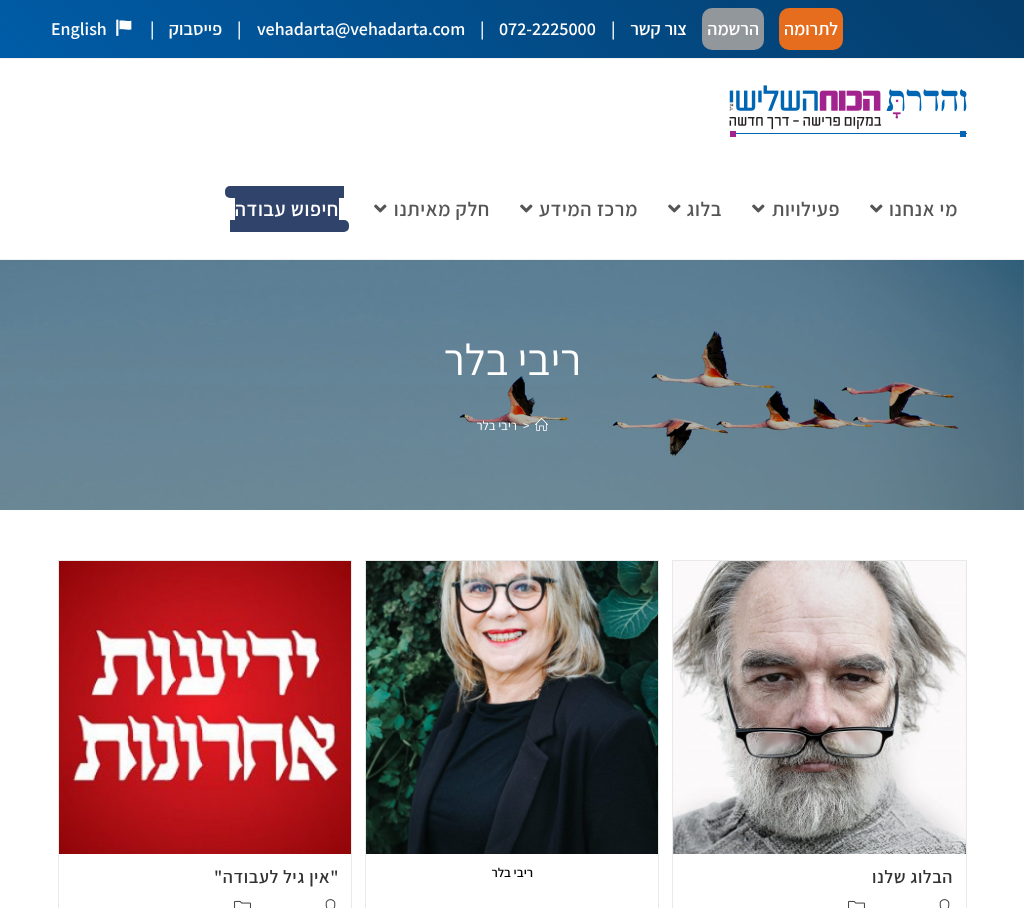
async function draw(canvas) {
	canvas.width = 1024;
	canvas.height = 908;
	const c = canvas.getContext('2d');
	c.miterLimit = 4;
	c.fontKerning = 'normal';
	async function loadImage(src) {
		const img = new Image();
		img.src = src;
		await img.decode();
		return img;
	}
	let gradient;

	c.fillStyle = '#fff';
	c.fillRect(0, 0, 1024, 908);
	gradient = c.createLinearGradient(242, 300, 783, -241);
	gradient.addColorStop(0, '#005ca7');
	gradient.addColorStop(1, '#053d6b');
	c.fillStyle = gradient;
	c.fillRect(0, 0, 1024, 58);
	c.fillStyle = '#f1f1f1';
	c.fillRect(0, 58, 1024, 1);
	c.fillStyle = '#e56d1d';
	c.beginPath();
	c.roundRect(779, 8, 64, 42, 10);
	c.fill();
	c.direction = 'rtl';
	c.font = '600 18px Assistant';
	c.fillStyle = '#fff';
	c.fillText('לתרומה', 838, 35);
	c.fillStyle = '#92979c';
	c.beginPath();
	c.roundRect(702, 8, 62, 42, 10);
	c.fill();
	c.fillStyle = '#fff';
	c.fillText('הרשמה', 759, 35);
	c.fillText('צור קשר', 687, 35);
	c.direction = 'ltr';
	for (const [text, x, y] of [
		['|', 611, 35],
		['072-2225000', 499, 35],
		['|', 480, 35],
		['vehadarta@vehadarta.com', 257, 35],
		['|', 237, 35],
	]) {
		c.fillText(text, x, y);
	}
	c.direction = 'rtl';
	c.fillText('פייסבוק', 222, 35);
	c.direction = 'ltr';
	c.fillText('|', 150, 35);
	c.drawImage(await loadImage('img1.png'), 116, 19, 16, 17);
	c.fillText('English', 51, 35);
	c.fillStyle = '#f1f1f1';
	c.fillRect(0, 259, 1024, 1);
	c.drawImage(await loadImage('img2.png'), 729, 85, 238, 52);
	c.letterSpacing = '0.6px';
	c.direction = 'rtl';
	c.font = '600 20px Assistant';
	c.fillStyle = '#555';
	c.fillText('מי אנחנו', 958, 216);
	c.drawImage(await loadImage('img3.png'), 870, 204, 13, 9);
	c.fillText('פעילויות', 840, 216);
	c.drawImage(await loadImage('img3.png'), 752, 204, 13, 9);
	c.fillText('בלוג', 722, 216);
	c.drawImage(await loadImage('img3.png'), 668, 204, 13, 9);
	c.fillText('מרכז המידע', 638, 216);
	c.drawImage(await loadImage('img3.png'), 520, 204, 13, 9);
	c.fillText('חלק מאיתנו', 490, 216);
	c.drawImage(await loadImage('img3.png'), 374, 204, 13, 9);
	c.fillStyle = '#30436b';
	c.fillRect(235, 198, 104, 22);
	c.fillStyle = '#fff';
	c.fillText('חיפוש עבודה', 339, 216);
	c.fillStyle = '#30436b';
	c.beginPath();
	c.roundRect(225, 186, 119, 12, [5, 0, 0, 5]);
	c.fill();
	c.beginPath();
	c.roundRect(230, 220, 119, 12, [0, 5, 5, 0]);
	c.fill();
	c.drawImage(await loadImage('img4.png'), 0, 260, 1024, 250);
	c.letterSpacing = '0px';
	c.font = '44px Assistant';
	c.fillStyle = '#fff';
	c.fillText('ריבי בלר', 581, 375);
	c.drawImage(await loadImage('img5.png'), 535, 417, 13, 14);
	c.direction = 'ltr';
	c.font = '13px Assistant';
	c.fillText('>', 523, 430);
	c.direction = 'rtl';
	c.fillText('ריבי בלר', 517, 430);
	c.strokeStyle = '#e9e9e9';
	c.strokeRect(672.5, 560.5, 294, 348);
	c.drawImage(await loadImage('img6.png'), 673, 561, 293, 293);
	c.letterSpacing = '0.6px';
	c.font = '600 18px Assistant';
	c.fillStyle = '#333';
	c.fillText('הבלוג שלנו', 953, 883);
	c.drawImage(await loadImage('img7.png'), 939, 899, 11, 9);
	c.drawImage(await loadImage('img8.png'), 848, 900, 17, 8);
	c.strokeRect(365.5, 560.5, 293, 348);
	c.drawImage(await loadImage('img9.png'), 366, 561, 292, 293);
	c.letterSpacing = '0px';
	c.font = '600 13px Assistant';
	c.fillStyle = '#000';
	c.fillText('ריבי בלר', 533, 877);
	c.strokeRect(58.5, 560.5, 293, 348);
	c.drawImage(await loadImage('img10.png'), 59, 561, 292, 293);
	c.letterSpacing = '0.6px';
	c.font = '600 18px Assistant';
	c.fillStyle = '#333';
	c.fillText('"אין גיל לעבודה"', 339, 883);
	c.drawImage(await loadImage('img7.png'), 325, 899, 11, 9);
	c.drawImage(await loadImage('img8.png'), 234, 900, 17, 8);
}

draw(document.querySelector('canvas'));
